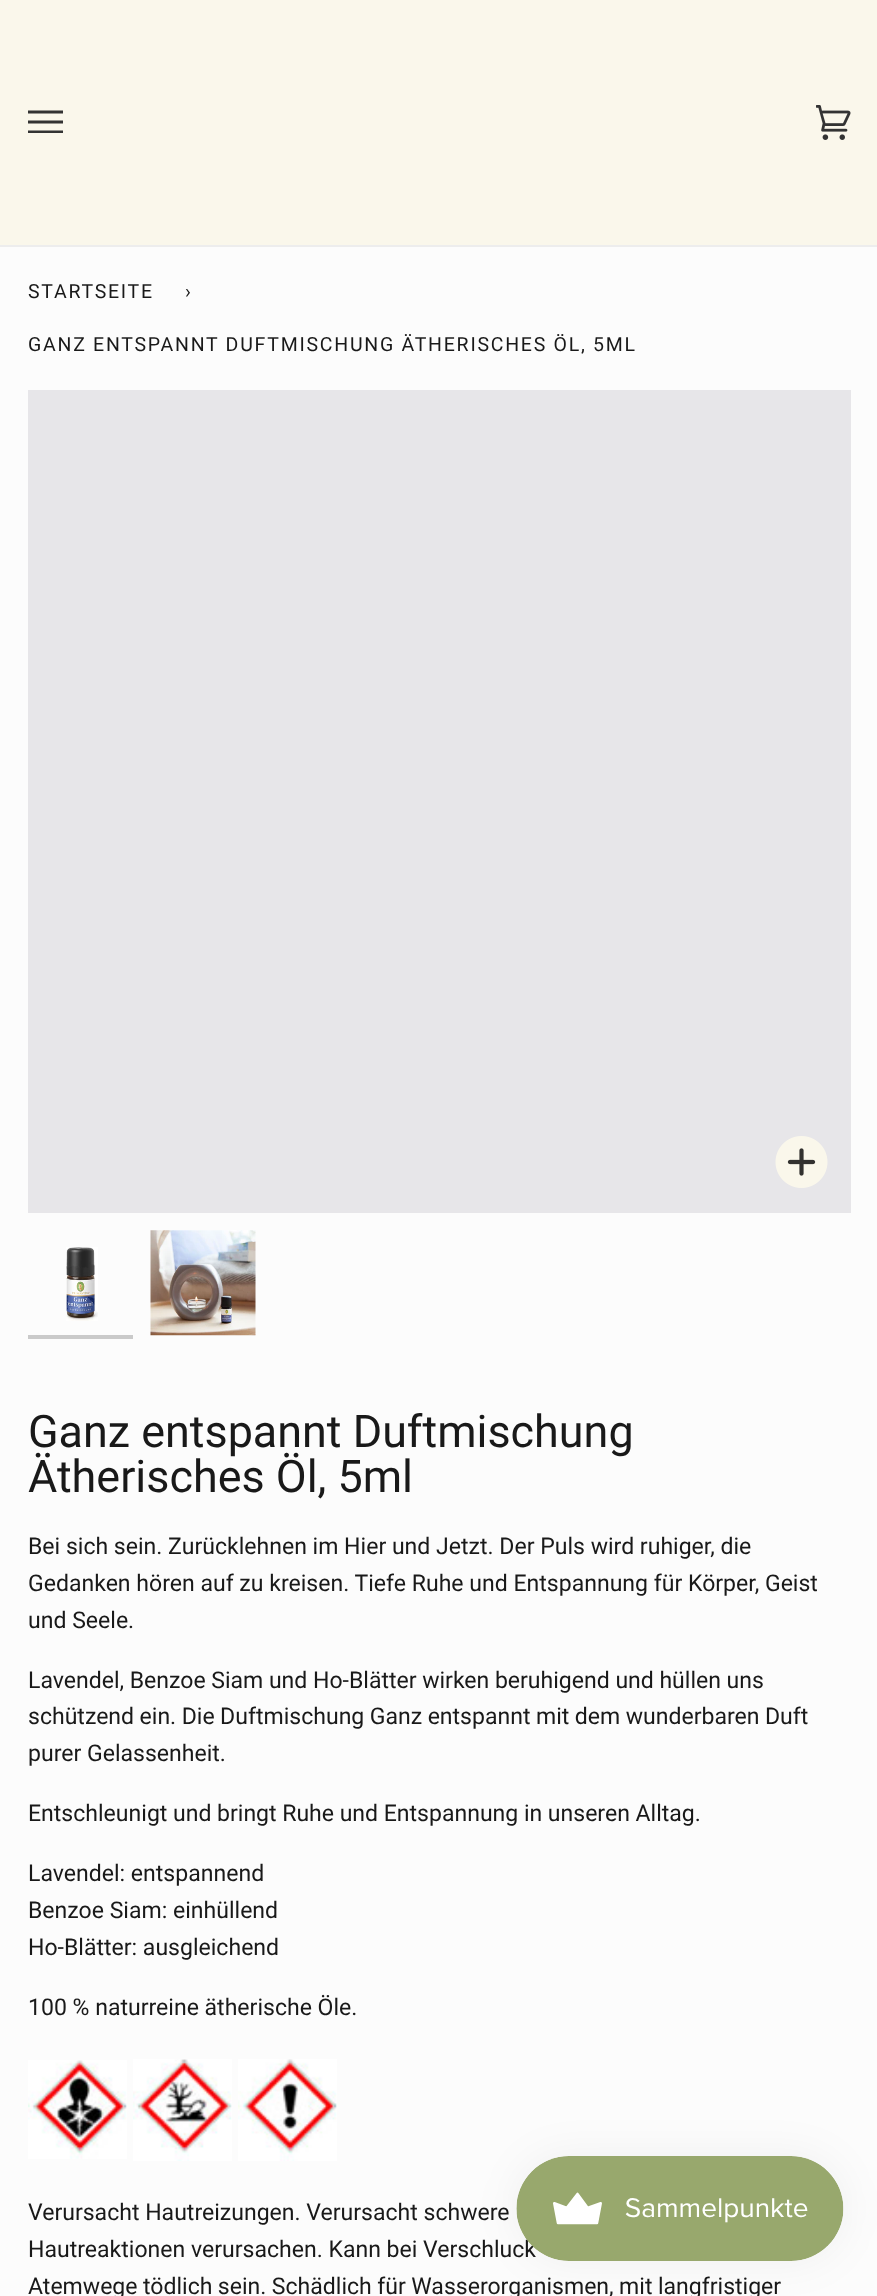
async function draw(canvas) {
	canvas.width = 877;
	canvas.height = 2296;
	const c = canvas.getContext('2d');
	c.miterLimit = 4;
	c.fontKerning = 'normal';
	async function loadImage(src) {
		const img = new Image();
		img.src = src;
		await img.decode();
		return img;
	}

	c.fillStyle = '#fcfcfc';
	c.fillRect(0, 0, 877, 2296);
	c.fillStyle = '#faf7eb';
	c.fillRect(0, 0, 877, 245);
	c.fillStyle = '#ededed';
	c.fillRect(0, 245, 877, 2);
	c.fillStyle = '#333';
	c.beginPath();
	c.moveTo(28, 110.5);
	c.lineTo(63, 110.5);
	c.lineTo(63, 113.5);
	c.lineTo(28, 113.5);
	c.closePath();
	c.moveTo(28, 120.5);
	c.lineTo(63, 120.5);
	c.lineTo(63, 123.5);
	c.lineTo(28, 123.5);
	c.closePath();
	c.moveTo(28, 130.5);
	c.lineTo(63, 130.5);
	c.lineTo(63, 133);
	c.lineTo(28, 133);
	c.closePath();
	c.fill();
	c.drawImage(await loadImage('img1.png'), 816, 105, 35, 35);
	c.letterSpacing = '1.75px';
	c.font = '19.5px Roboto';
	c.fillStyle = '#191919';
	c.fillText('STARTSEITE', 28, 298);
	c.fillText('›', 185, 298);
	c.wordSpacing = '-0.1px';
	c.fillText('GANZ ENTSPANNT DUFTMISCHUNG ÄTHERISCHES ÖL, 5ML', 28, 351);
	c.fillStyle = '#e7e6e9';
	c.fillRect(28, 390, 823, 823);
	c.drawImage(await loadImage('img2.png'), 775, 1136, 53, 52);
	c.drawImage(await loadImage('img3.png'), 66, 1247, 32, 74);
	c.fillStyle = '#cacaca';
	c.fillRect(28, 1335, 105, 4);
	c.drawImage(await loadImage('img4.png'), 150, 1230, 106, 106);
	c.letterSpacing = '0px';
	c.wordSpacing = '0px';
	c.font = '44.9px Roboto';
	c.fillStyle = '#191919';
	c.fillText('Ganz entspannt Duftmischung', 28, 1447);
	c.fillText('Ätherisches Öl, 5ml', 28, 1492);
	c.font = '23.05px Roboto';
	for (const [text, x, y] of [
		['Bei sich sein. Zurücklehnen im Hier und Jetzt. Der Puls wird ruhiger, die', 28, 1554],
		['Gedanken hören auf zu kreisen. Tiefe Ruhe und Entspannung für Körper, Geist', 28, 1591],
		['und Seele.', 28, 1628],
	]) {
		c.fillText(text, x, y);
	}
	c.wordSpacing = '-0.1px';
	c.fillText('Lavendel, Benzoe Siam und Ho-Blätter wirken beruhigend und hüllen uns', 28, 1688);
	c.wordSpacing = '-0.25px';
	c.fillText('schützend ein. Die Duftmischung Ganz entspannt mit dem wunderbaren Duft', 28, 1724);
	c.wordSpacing = '0px';
	c.fillText('purer Gelassenheit.', 28, 1761);
	c.wordSpacing = '-0.1px';
	c.fillText('Entschleunigt und bringt Ruhe und Entspannung in unseren Alltag.', 28, 1821);
	c.wordSpacing = '0px';
	for (const [text, x, y] of [
		['Lavendel: entspannend', 28, 1881],
		['Benzoe Siam: einhüllend', 28, 1918],
		['Ho-Blätter: ausgleichend', 28, 1955],
		['100 % naturreine ätherische Öle.', 28, 2015],
	]) {
		c.fillText(text, x, y);
	}
	c.drawImage(await loadImage('img5.png'), 28, 2060, 99, 99);
	c.drawImage(await loadImage('img6.png'), 133, 2059, 99, 102);
	c.drawImage(await loadImage('img7.png'), 238, 2059, 99, 102);
	c.fillText('Verursacht Hautreizungen. Verursacht schwere', 28, 2220);
	c.fillText('Hautreaktionen verursachen. Kann bei Verschluck', 28, 2257);
	c.wordSpacing = '-0.25px';
	c.fillText('Atemwege tödlich sein. Schädlich für Wasserorganismen, mit langfristiger', 28, 2294);
	c.fillStyle = '#0000000d';
	c.filter = 'blur(22px)';
	c.beginPath();
	c.roundRect(516, 2156, 328, 105, 52.5);
	c.fill();
	c.filter = 'none';
	c.drawImage(await loadImage('img8.png'), 516, 2156, 328, 105);
}

draw(document.querySelector('canvas'));
